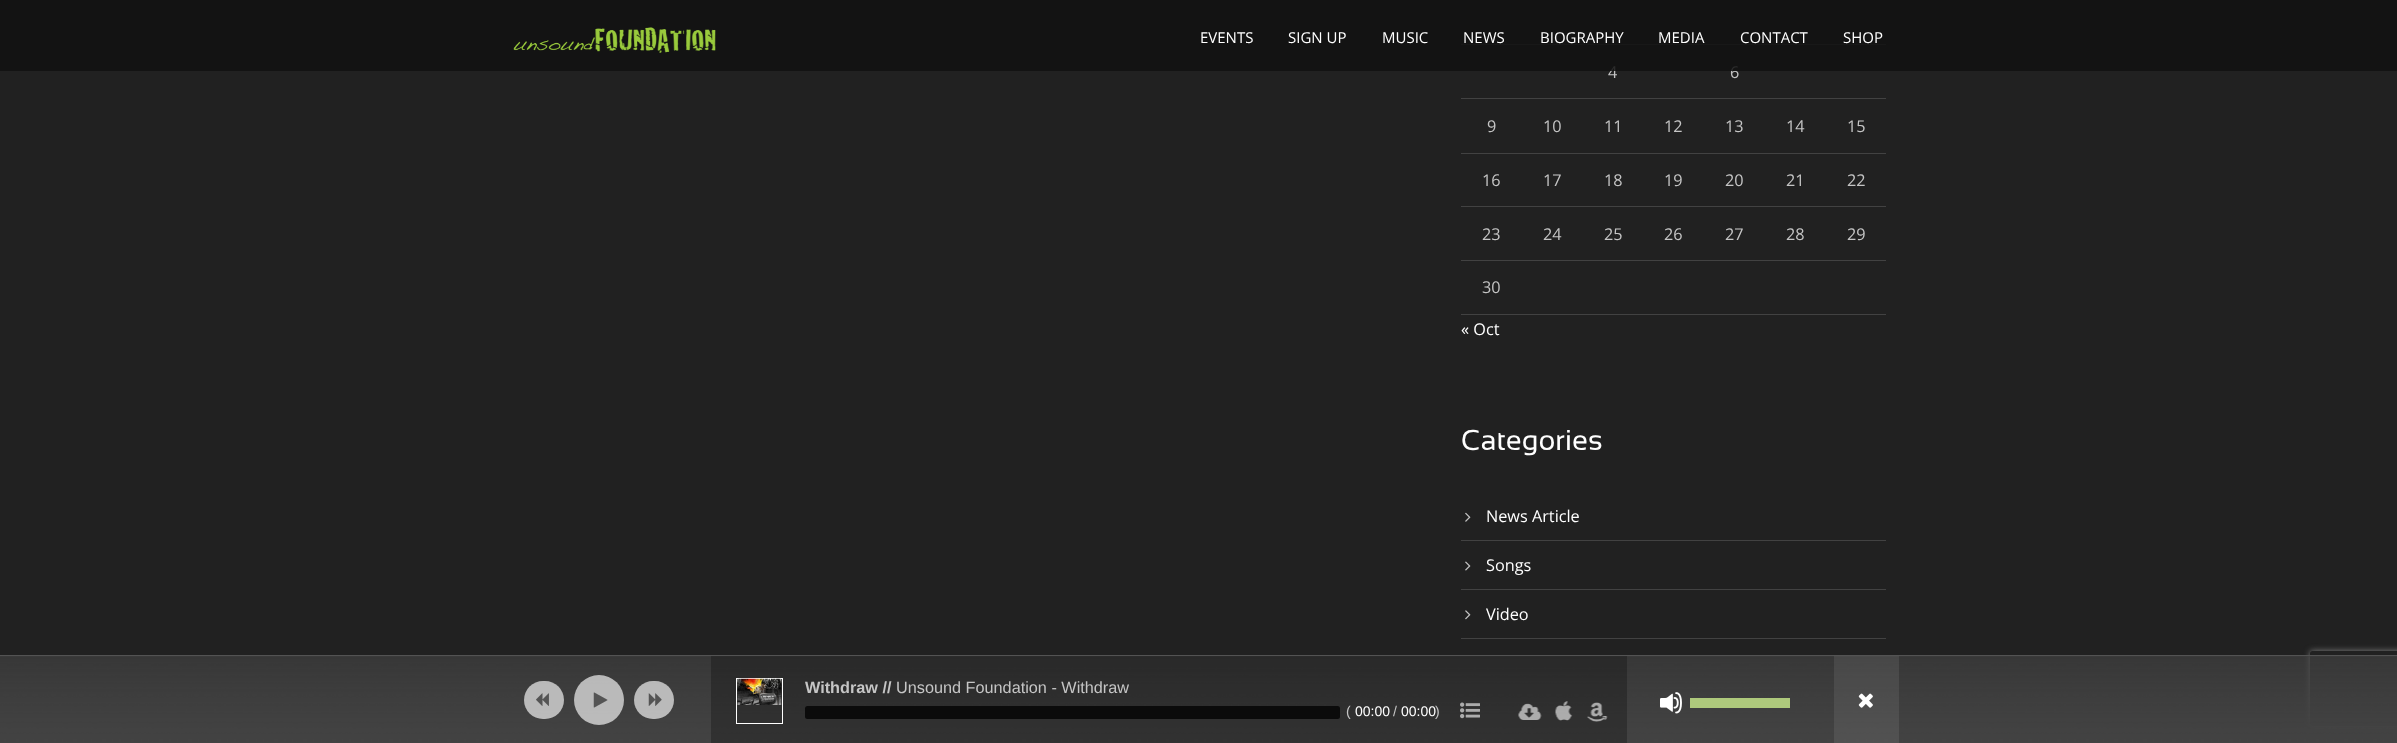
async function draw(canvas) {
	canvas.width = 2397;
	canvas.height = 743;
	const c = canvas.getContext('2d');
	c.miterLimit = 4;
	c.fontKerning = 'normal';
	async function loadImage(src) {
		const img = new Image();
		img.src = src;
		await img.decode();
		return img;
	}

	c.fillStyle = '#212121';
	c.fillRect(0, 0, 2397, 743);
	c.fillStyle = '#424242';
	c.fillRect(1461, 44, 425, 1);
	c.font = '16.25px Open Sans';
	c.fillStyle = '#c5c5c5';
	c.fillText('4', 1608, 78);
	c.fillText('6', 1730, 78);
	c.fillStyle = '#111111d9';
	c.fillRect(0, 0, 2397, 71);
	c.drawImage(await loadImage('img1.png'), 513, 27, 203, 26);
	c.font = '15px Open Sans';
	c.fillStyle = '#fff';
	for (const [text, x, y] of [
		['EVENTS', 1200, 43],
		['SIGN UP', 1288, 43],
		['MUSIC', 1382, 43],
		['NEWS', 1463, 43],
		['BIOGRAPHY', 1540, 43],
		['MEDIA', 1658, 43],
		['CONTACT', 1740, 43],
		['SHOP', 1843, 43],
	]) {
		c.fillText(text, x, y);
	}
	c.fillStyle = '#424242';
	c.fillRect(1461, 98, 425, 1);
	c.font = '16.25px Open Sans';
	c.fillStyle = '#c5c5c5';
	for (const [text, x, y] of [
		['9', 1487, 132],
		['10', 1543, 132],
		['11', 1604, 132],
		['12', 1664, 132],
		['13', 1725, 132],
		['14', 1786, 132],
	]) {
		c.fillText(text, x, y);
	}
	c.fillStyle = '#424242';
	c.fillRect(1461, 153, 425, 1);
	c.fillStyle = '#c5c5c5';
	for (const [text, x, y] of [
		['15', 1847, 132],
		['16', 1482, 186],
		['17', 1543, 186],
		['18', 1604, 186],
		['19', 1664, 186],
		['20', 1725, 186],
		['21', 1786, 186],
	]) {
		c.fillText(text, x, y);
	}
	c.fillStyle = '#424242';
	c.fillRect(1461, 206, 425, 1);
	c.fillStyle = '#c5c5c5';
	for (const [text, x, y] of [
		['22', 1847, 186],
		['23', 1482, 240],
		['24', 1543, 240],
		['25', 1604, 240],
		['26', 1664, 240],
		['27', 1725, 240],
		['28', 1786, 240],
	]) {
		c.fillText(text, x, y);
	}
	c.fillStyle = '#424242';
	c.fillRect(1461, 260, 425, 1);
	c.fillStyle = '#c5c5c5';
	c.fillText('29', 1847, 240);
	c.fillText('30', 1482, 293);
	c.fillStyle = '#424242';
	c.fillRect(1461, 314, 425, 1);
	c.fillStyle = '#fff';
	c.fillText('« Oct', 1461, 335);
	c.font = '28.75px Sansation';
	c.fillText('Categories', 1461, 450);
	c.fillStyle = '#424242';
	c.fillRect(1461, 540, 425, 1);
	c.drawImage(await loadImage('img2.png'), 1465, 512, 6, 10);
	c.font = '16.25px Open Sans';
	c.fillStyle = '#fff';
	c.fillText('News Article', 1486, 522);
	c.fillStyle = '#424242';
	c.fillRect(1461, 589, 425, 1);
	c.drawImage(await loadImage('img3.png'), 1465, 561, 6, 10);
	c.fillStyle = '#fff';
	c.fillText('Songs', 1486, 571);
	c.fillStyle = '#424242';
	c.fillRect(1461, 638, 425, 1);
	c.drawImage(await loadImage('img4.png'), 1465, 610, 6, 10);
	c.fillStyle = '#fff';
	c.fillText('Video', 1486, 620);
	c.save();
	c.beginPath();
	c.moveTo(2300, 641);
	c.lineTo(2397, 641);
	c.lineTo(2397, 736);
	c.lineTo(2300, 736);
	c.closePath();
	c.moveTo(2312.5, 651);
	c.lineTo(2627.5, 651);
	c.bezierCurveTo(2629, 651, 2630, 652, 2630, 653.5);
	c.lineTo(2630, 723.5);
	c.bezierCurveTo(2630, 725, 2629, 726, 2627.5, 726);
	c.lineTo(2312.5, 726);
	c.bezierCurveTo(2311, 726, 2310, 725, 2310, 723.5);
	c.lineTo(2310, 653.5);
	c.bezierCurveTo(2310, 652, 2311, 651, 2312.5, 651);
	c.closePath();
	c.clip('evenodd');
	c.fillStyle = '#808080';
	c.filter = 'blur(3px)';
	c.beginPath();
	c.roundRect(2310, 651, 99, 75, 2.5);
	c.fill();
	c.filter = 'none';
	c.restore();
	c.drawImage(await loadImage('img5.png'), 0, 656, 2397, 87);
	c.fillStyle = '#535353';
	c.fillRect(0, 655, 2397, 1);
	c.fillStyle = '#dadadacc';
	c.beginPath();
	c.roundRect(524, 681, 40, 38, 19);
	c.fill();
	c.drawImage(await loadImage('img6.png'), 536, 693, 13, 13);
	c.beginPath();
	c.arc(599, 700, 25, 0, 2 * Math.PI);
	c.fill();
	c.drawImage(await loadImage('img7.png'), 593, 692, 15, 16);
	c.beginPath();
	c.roundRect(634, 681, 40, 38, 19);
	c.fill();
	c.drawImage(await loadImage('img8.png'), 648, 693, 14, 13);
	c.fillStyle = '#00000040';
	c.fillRect(711, 656, 730, 87);
	c.strokeStyle = '#fff';
	c.strokeRect(736.5, 678.5, 46, 45);
	c.drawImage(await loadImage('img9.png'), 737, 678, 45, 27);
	c.font = 'bold 16.25px Liberation Sans';
	c.fillStyle = '#c5c5c5';
	c.fillText('Withdraw //', 805, 693);
	c.font = '16.25px Liberation Sans';
	c.fillText('Unsound Foundation - Withdraw', 896, 693);
	c.fillStyle = '#0b0b0b';
	c.beginPath();
	c.roundRect(805, 706, 535, 13, 2.5);
	c.fill();
	c.font = '14px Liberation Sans';
	c.fillStyle = '#c5c5c5';
	c.fillText('(', 1346, 716);
	c.fillStyle = '#fff';
	c.fillText('00:00', 1355, 716);
	c.fillStyle = '#c5c5c5';
	c.fillText('/', 1393, 716);
	c.fillStyle = '#fff';
	c.fillText('00:00', 1401, 716);
	c.fillStyle = '#c5c5c5';
	c.fillText(')', 1435, 716);
	c.fillStyle = '#00000040';
	c.fillRect(1441, 656, 186, 87);
	c.drawImage(await loadImage('img10.png'), 1460, 702, 20, 17);
	c.drawImage(await loadImage('img11.png'), 1518, 703, 24, 17);
	c.drawImage(await loadImage('img12.png'), 1555, 701, 18, 20);
	c.drawImage(await loadImage('img13.png'), 1587, 702, 21, 20);
	c.drawImage(await loadImage('img14.png'), 1660, 692, 22, 22);
	c.fillStyle = '#aec97c';
	c.fillRect(1690, 698, 100, 10);
	c.fillStyle = '#d8d8d81a';
	c.fillRect(1834, 656, 65, 87);
	c.drawImage(await loadImage('img15.png'), 1858, 693, 15, 15);
}

draw(document.querySelector('canvas'));
